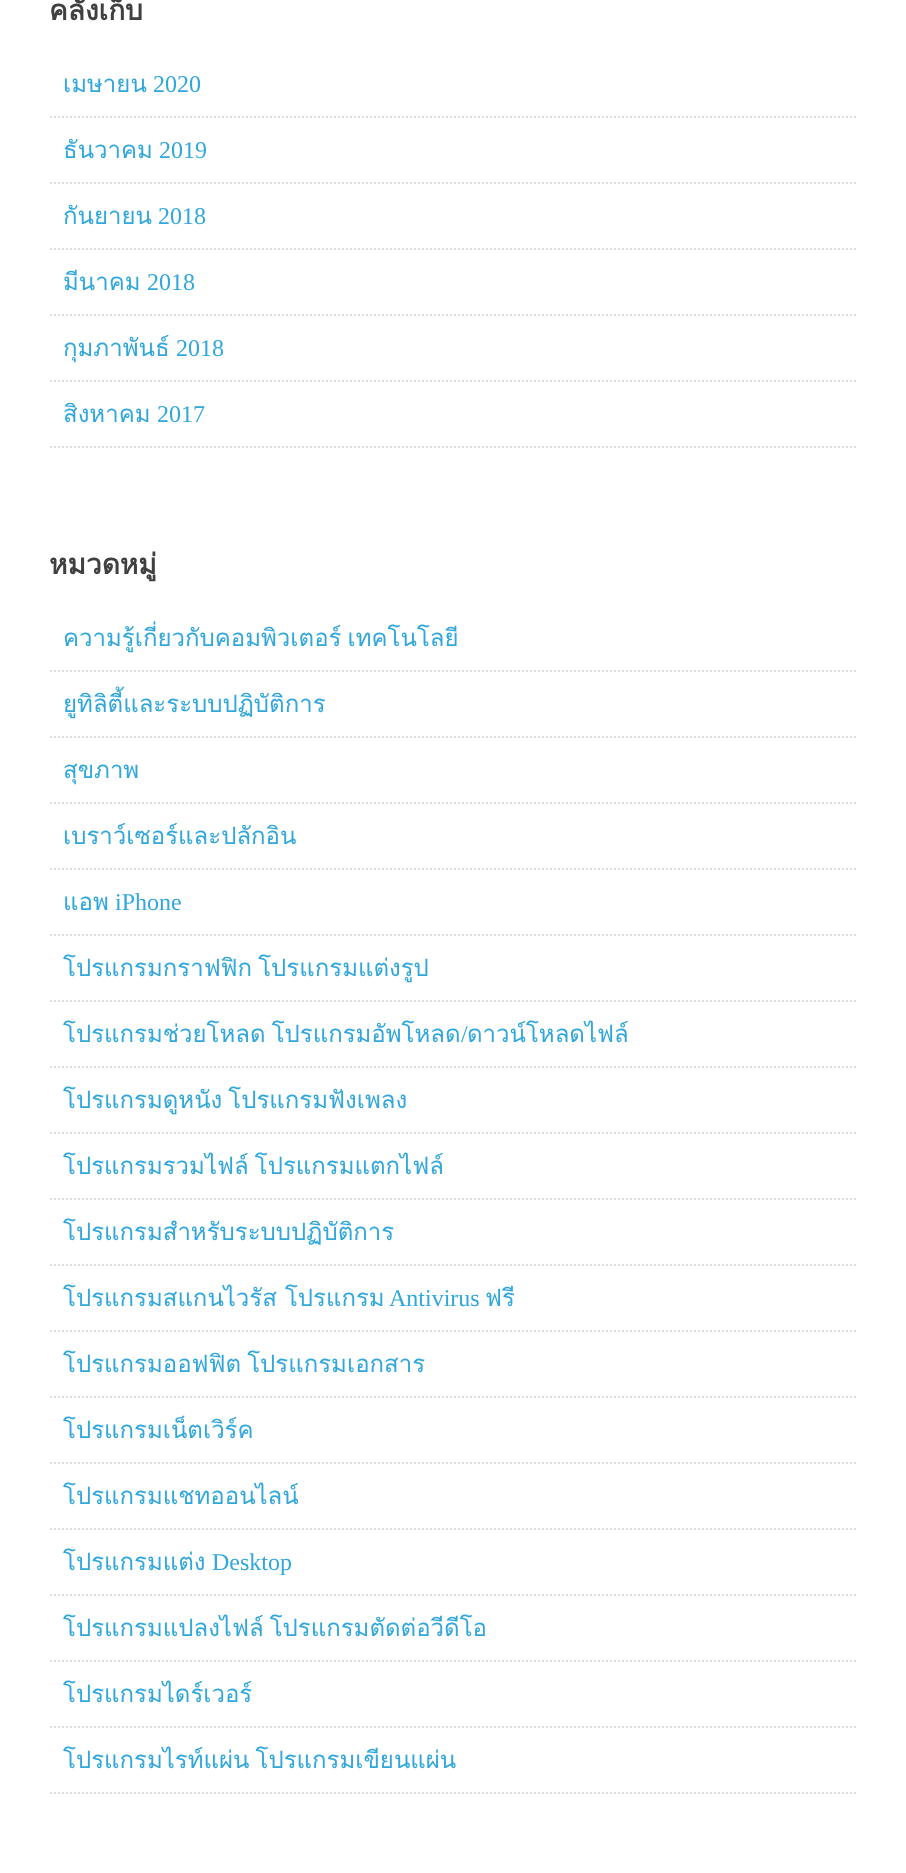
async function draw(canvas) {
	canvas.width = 906;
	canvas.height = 1873;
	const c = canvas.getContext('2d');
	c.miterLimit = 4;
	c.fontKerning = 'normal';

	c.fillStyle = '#fff';
	c.fillRect(0, 0, 906, 1873);
	c.font = 'bold 28px Loma';
	c.fillStyle = '#404040';
	c.fillText('คลังเก็บ', 49, 20);
	c.beginPath();
	c.moveTo(50, 117);
	c.lineTo(856, 117);
	c.strokeStyle = '#ddd';
	c.lineWidth = 2;
	c.setLineDash([2, 2]);
	c.stroke();
	c.font = '24px Loma';
	c.fillStyle = '#32a7db';
	c.fillText('เมษายน', 63, 92);
	c.font = '24px Liberation Serif';
	c.fillText('2020', 153, 92);
	c.beginPath();
	c.moveTo(50, 183);
	c.lineTo(856, 183);
	c.stroke();
	c.font = '24px Loma';
	c.fillText('ธันวาคม', 63, 158);
	c.font = '24px Liberation Serif';
	c.fillText('2019', 159, 158);
	c.beginPath();
	c.moveTo(50, 249);
	c.lineTo(856, 249);
	c.stroke();
	c.font = '24px Loma';
	c.fillText('กันยายน', 63, 224);
	c.font = '24px Liberation Serif';
	c.fillText('2018', 158, 224);
	c.beginPath();
	c.moveTo(50, 315);
	c.lineTo(856, 315);
	c.stroke();
	c.font = '24px Loma';
	c.fillText('มีนาคม', 63, 290);
	c.font = '24px Liberation Serif';
	c.fillText('2018', 147, 290);
	c.beginPath();
	c.moveTo(50, 381);
	c.lineTo(856, 381);
	c.stroke();
	c.font = '24px Loma';
	c.fillText('กุมภาพันธ์', 63, 356);
	c.font = '24px Liberation Serif';
	c.fillText('2018', 176, 356);
	c.beginPath();
	c.moveTo(50, 447);
	c.lineTo(856, 447);
	c.stroke();
	c.font = '24px Loma';
	c.fillText('สิงหาคม', 63, 422);
	c.font = '24px Liberation Serif';
	c.fillText('2017', 157, 422);
	c.font = 'bold 28px Loma';
	c.fillStyle = '#404040';
	c.fillText('หมวดหมู่', 49, 574);
	c.beginPath();
	c.moveTo(50, 671);
	c.lineTo(856, 671);
	c.stroke();
	c.wordSpacing = '-2px';
	c.font = '24px Loma';
	c.fillStyle = '#32a7db';
	c.fillText('ความรู้เกี่ยวกับคอมพิวเตอร์ เทคโนโลยี', 63, 646);
	c.beginPath();
	c.moveTo(50, 737);
	c.lineTo(856, 737);
	c.stroke();
	c.wordSpacing = '0px';
	c.fillText('ยูทิลิตี้และระบบปฏิบัติการ', 63, 712);
	c.beginPath();
	c.moveTo(50, 803);
	c.lineTo(856, 803);
	c.stroke();
	c.fillText('สุขภาพ', 63, 778);
	c.beginPath();
	c.moveTo(50, 869);
	c.lineTo(856, 869);
	c.stroke();
	c.fillText('เบราว์เซอร์และปลักอิน', 63, 844);
	c.beginPath();
	c.moveTo(50, 935);
	c.lineTo(856, 935);
	c.stroke();
	c.fillText('แอพ', 63, 910);
	c.font = '24px Liberation Serif';
	c.fillText('iPhone', 115, 910);
	c.beginPath();
	c.moveTo(50, 1001);
	c.lineTo(856, 1001);
	c.stroke();
	c.wordSpacing = '-2px';
	c.font = '24px Loma';
	c.fillText('โปรแกรมกราฟฟิก โปรแกรมแต่งรูป', 63, 976);
	c.beginPath();
	c.moveTo(50, 1067);
	c.lineTo(856, 1067);
	c.stroke();
	c.fillText('โปรแกรมช่วยโหลด โปรแกรมอัพโหลด', 63, 1042);
	c.wordSpacing = '0px';
	c.font = '24px Liberation Serif';
	c.fillText('/', 461, 1042);
	c.font = '24px Loma';
	c.fillText('ดาวน์โหลดไฟล์', 467, 1042);
	c.beginPath();
	c.moveTo(50, 1133);
	c.lineTo(856, 1133);
	c.stroke();
	c.wordSpacing = '-2px';
	c.fillText('โปรแกรมดูหนัง โปรแกรมฟังเพลง', 63, 1108);
	c.beginPath();
	c.moveTo(50, 1199);
	c.lineTo(856, 1199);
	c.stroke();
	c.fillText('โปรแกรมรวมไฟล์ โปรแกรมแตกไฟล์', 63, 1174);
	c.beginPath();
	c.moveTo(50, 1265);
	c.lineTo(856, 1265);
	c.stroke();
	c.wordSpacing = '0px';
	c.fillText('โปรแกรมสำหรับระบบปฏิบัติการ', 63, 1240);
	c.beginPath();
	c.moveTo(50, 1331);
	c.lineTo(856, 1331);
	c.stroke();
	c.fillText('โปรแกรมสแกนไวรัส โปรแกรม', 63, 1306);
	c.font = '24px Liberation Serif';
	c.fillText('Antivirus', 389, 1306);
	c.font = '24px Loma';
	c.fillText('ฟรี', 485, 1306);
	c.beginPath();
	c.moveTo(50, 1397);
	c.lineTo(856, 1397);
	c.stroke();
	c.wordSpacing = '-2px';
	c.fillText('โปรแกรมออฟฟิต โปรแกรมเอกสาร', 63, 1372);
	c.beginPath();
	c.moveTo(50, 1463);
	c.lineTo(856, 1463);
	c.stroke();
	c.wordSpacing = '0px';
	c.fillText('โปรแกรมเน็ตเวิร์ค', 63, 1438);
	c.beginPath();
	c.moveTo(50, 1529);
	c.lineTo(856, 1529);
	c.stroke();
	c.fillText('โปรแกรมแชทออนไลน์', 63, 1504);
	c.beginPath();
	c.moveTo(50, 1595);
	c.lineTo(856, 1595);
	c.stroke();
	c.fillText('โปรแกรมแต่ง', 63, 1570);
	c.font = '24px Liberation Serif';
	c.fillText('Desktop', 212, 1570);
	c.beginPath();
	c.moveTo(50, 1661);
	c.lineTo(856, 1661);
	c.stroke();
	c.wordSpacing = '-2px';
	c.font = '24px Loma';
	c.fillText('โปรแกรมแปลงไฟล์ โปรแกรมตัดต่อวีดีโอ', 63, 1636);
	c.beginPath();
	c.moveTo(50, 1727);
	c.lineTo(856, 1727);
	c.stroke();
	c.wordSpacing = '0px';
	c.fillText('โปรแกรมไดร์เวอร์', 63, 1702);
	c.beginPath();
	c.moveTo(50, 1793);
	c.lineTo(856, 1793);
	c.stroke();
	c.wordSpacing = '-2px';
	c.fillText('โปรแกรมไรท์แผ่น โปรแกรมเขียนแผ่น', 63, 1768);
}

draw(document.querySelector('canvas'));
